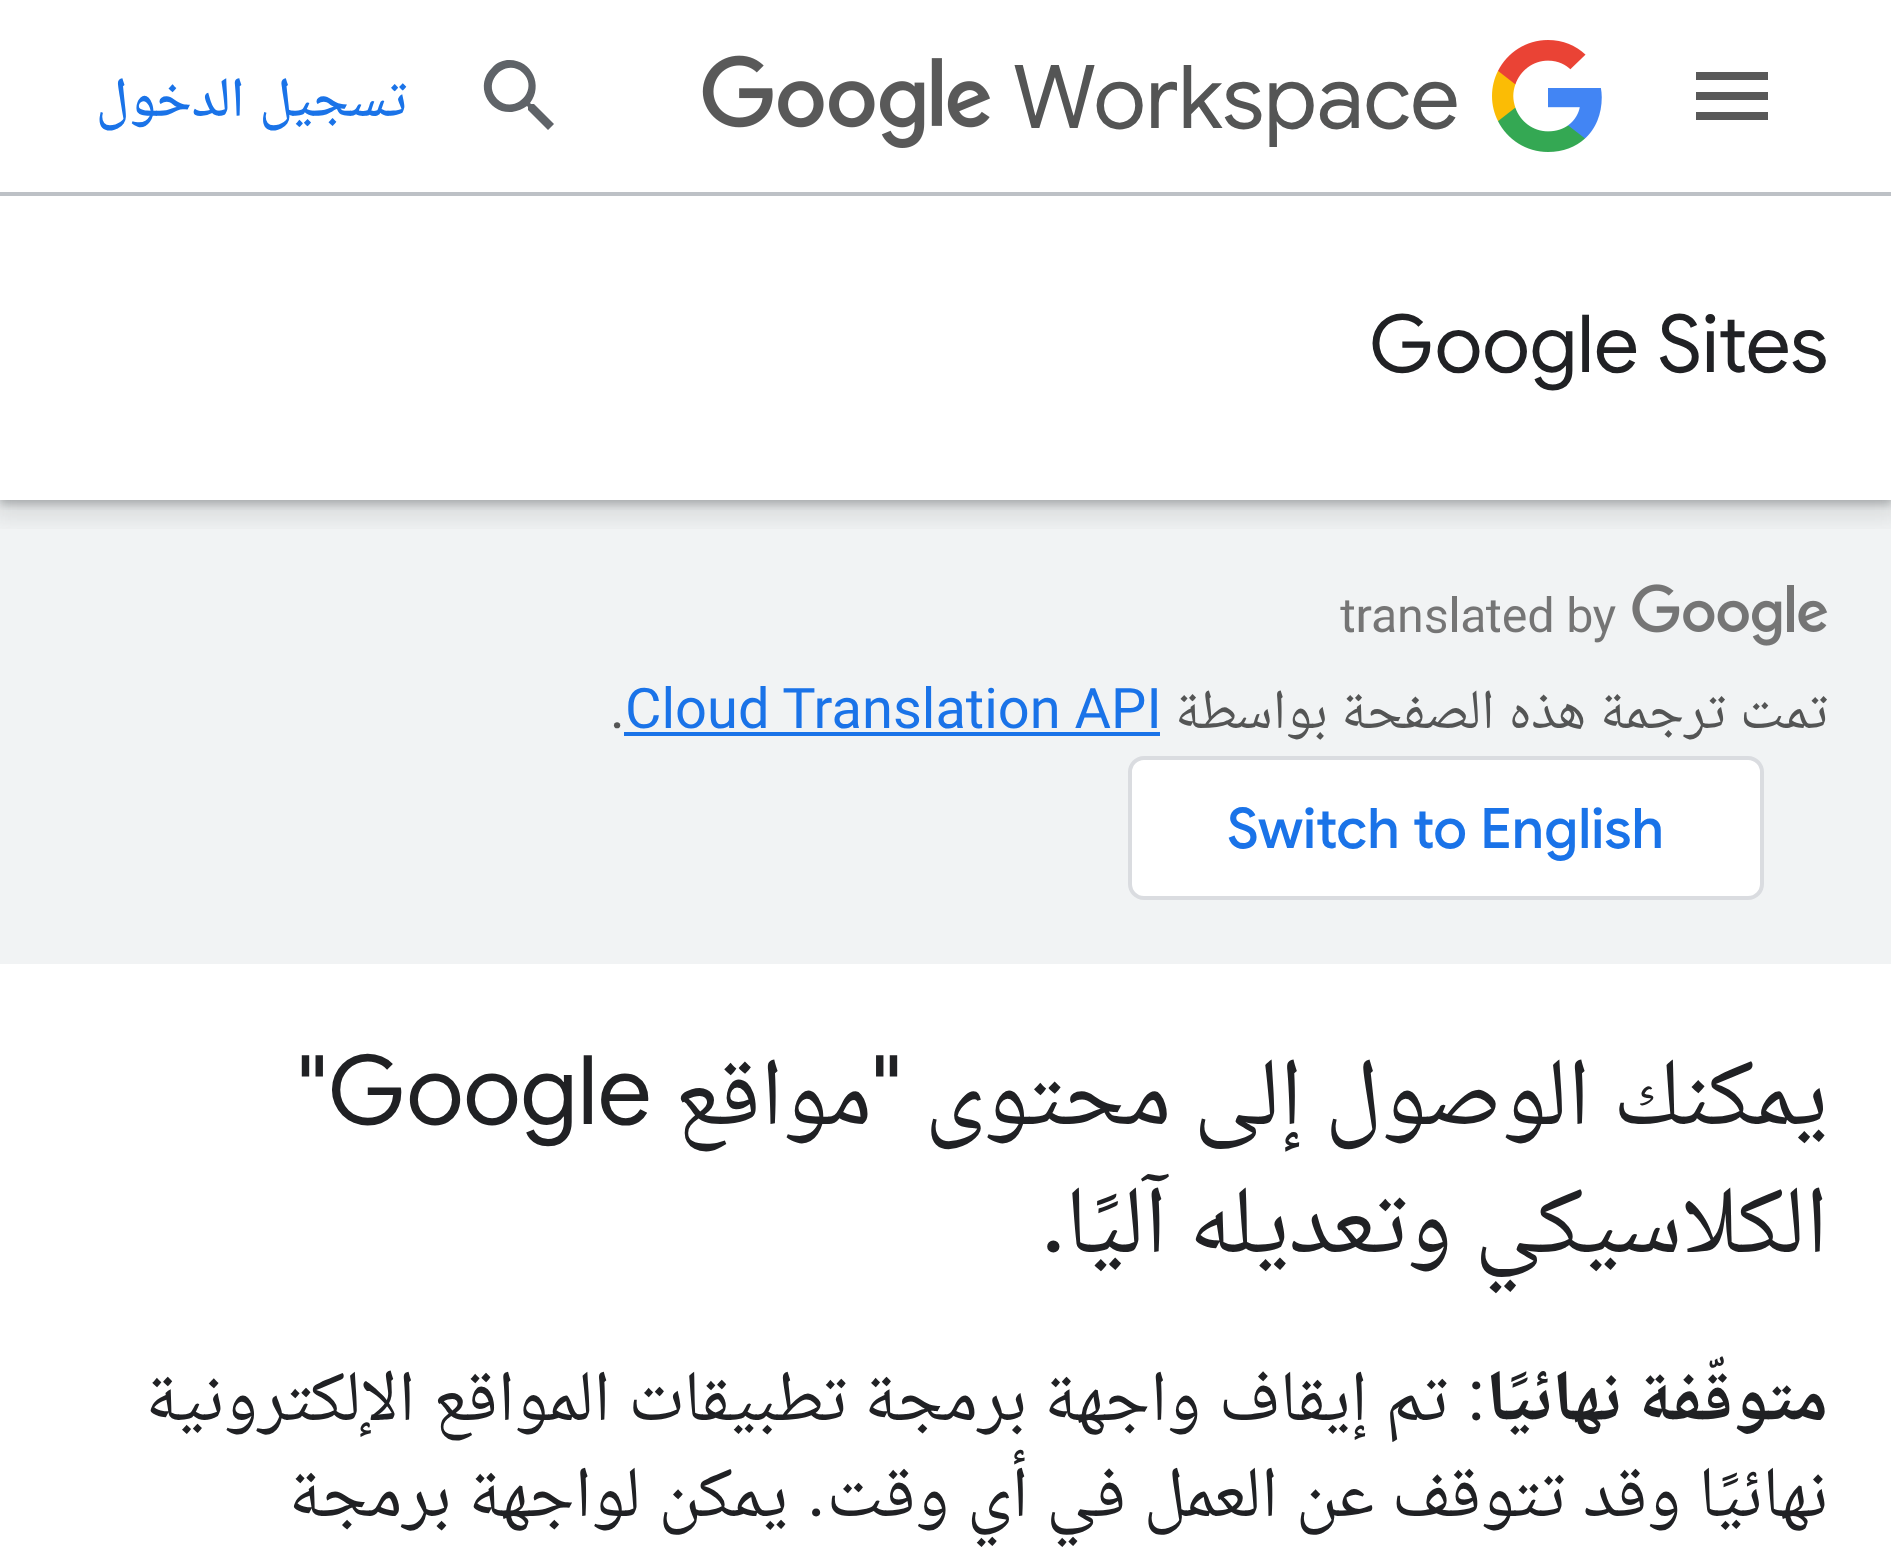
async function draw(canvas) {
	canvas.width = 1891;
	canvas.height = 1567;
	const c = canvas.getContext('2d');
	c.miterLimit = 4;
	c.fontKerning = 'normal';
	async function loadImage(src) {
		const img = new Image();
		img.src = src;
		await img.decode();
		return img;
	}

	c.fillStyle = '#fff';
	c.fillRect(0, 0, 1891, 1567);
	c.fillStyle = '#f1f3f4';
	c.fillRect(0, 500, 1891, 464);
	c.save();
	c.beginPath();
	c.rect(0, 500, 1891, 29);
	c.clip();
	c.fillStyle = '#3c404326';
	c.filter = 'blur(12px)';
	c.beginPath();
	c.rect(-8, 196, 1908, 320);
	c.fill();
	c.filter = 'none';
	c.restore();
	c.save();
	c.beginPath();
	c.rect(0, 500, 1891, 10);
	c.clip();
	c.fillStyle = '#3c40434d';
	c.filter = 'blur(4px)';
	c.beginPath();
	c.rect(0, 200, 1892, 304);
	c.fill();
	c.filter = 'none';
	c.restore();
	c.fillStyle = '#fff';
	c.fillRect(0, 180, 1891, 12);
	c.fillStyle = '#bdc1c6';
	c.fillRect(0, 192, 1891, 4);
	c.fillStyle = '#595959';
	c.beginPath();
	c.moveTo(1696, 72);
	c.lineTo(1768, 72);
	c.lineTo(1768, 80);
	c.lineTo(1696, 80);
	c.closePath();
	c.moveTo(1696, 100);
	c.lineTo(1696, 92);
	c.lineTo(1768, 92);
	c.lineTo(1768, 100);
	c.closePath();
	c.moveTo(1696, 120);
	c.lineTo(1696, 112);
	c.lineTo(1768, 112);
	c.lineTo(1768, 120);
	c.closePath();
	c.fill();
	c.drawImage(await loadImage('img1.png'), 1492, 40, 110, 112);
	c.font = '88px Google Sans';
	c.fillStyle = '#545555';
	c.fillText('Workspace', 1013, 128);
	c.drawImage(await loadImage('img2.png'), 702, 55, 288, 93);
	c.fillStyle = '#5f6368';
	c.beginPath();
	c.moveTo(497, 99);
	c.bezierCurveTo(514, 116, 540, 90, 523, 73);
	c.bezierCurveTo(506, 57, 481, 82, 497, 99);
	c.closePath();
	c.moveTo(534, 104);
	c.lineTo(554, 124);
	c.lineTo(548, 130);
	c.lineTo(528, 110);
	c.lineTo(528, 107);
	c.lineTo(527, 106);
	c.bezierCurveTo(523, 109, 518, 111, 512, 112);
	c.bezierCurveTo(488, 114, 474, 85, 492, 68);
	c.bezierCurveTo(496, 63, 501, 61, 507, 60);
	c.bezierCurveTo(531, 58, 544, 85, 530, 103);
	c.lineTo(531, 104);
	c.closePath();
	c.fill();
	c.wordSpacing = '2px';
	c.direction = 'rtl';
	c.font = '500 56px Noto Naskh Arabic';
	c.fillStyle = '#1a73e8';
	c.fillText('تسجيل الدخول', 407, 116);
	c.wordSpacing = '0px';
	c.direction = 'ltr';
	c.font = '80px Google Sans';
	c.fillStyle = '#202124';
	c.fillText('Google Sites', 1369, 372);
	c.drawImage(await loadImage('img3.png'), 1340, 584, 488, 62);
	c.wordSpacing = '1.5px';
	c.direction = 'rtl';
	c.font = '56px Noto Naskh Arabic';
	c.fillStyle = '#545555';
	c.fillText('تمت ترجمة هذه الصفحة بواسطة', 1828, 728);
	c.wordSpacing = '0px';
	c.direction = 'ltr';
	c.font = '56px Roboto';
	c.fillStyle = '#1a73e8';
	c.fillText('Cloud Translation API', 625, 728);
	c.fillRect(624, 732, 536, 4);
	c.fillStyle = '#545555';
	c.fillText('.', 610, 728);
	c.fillStyle = '#fff';
	c.beginPath();
	c.roundRect(1130, 758, 632, 140, 14);
	c.fill();
	c.strokeStyle = '#dadce0';
	c.lineWidth = 4;
	c.stroke();
	c.font = '500 56px Google Sans';
	c.fillStyle = '#1a73e8';
	c.fillText('Switch to English', 1227, 848);
	c.wordSpacing = '1px';
	c.direction = 'rtl';
	c.font = '96px Noto Naskh Arabic';
	c.fillStyle = '#202124';
	c.fillText('يمكنك الوصول إلى محتوى', 1828, 1124);
	c.wordSpacing = '0px';
	c.font = '96px Google Sans';
	c.fillText('"', 902, 1124);
	c.font = '96px Noto Naskh Arabic';
	c.fillText('مواقع', 872, 1124);
	c.direction = 'ltr';
	c.font = '96px Google Sans';
	c.fillText('"Google', 297, 1124);
	c.wordSpacing = '1px';
	c.direction = 'rtl';
	c.font = '96px Noto Naskh Arabic';
	c.fillText('الكلاسيكي وتعديله آليًا', 1828, 1252);
	c.wordSpacing = '0px';
	c.direction = 'ltr';
	c.font = '96px Google Sans';
	c.fillText('.', 1042, 1252);
	c.wordSpacing = '2px';
	c.direction = 'rtl';
	c.font = 'bold 72px Noto Naskh Arabic';
	c.fillText('متوقّفة نهائيًا', 1828, 1420);
	c.wordSpacing = '0px';
	c.font = '72px Roboto';
	c.fillText(':', 1485, 1420);
	c.wordSpacing = '1.75px';
	c.font = '72px Noto Naskh Arabic';
	c.fillText('تم إيقاف واجهة برمجة تطبيقات المواقع الإلكترونية', 1448, 1420);
	c.fillText('نهائيًا وقد تتوقف عن العمل في أي وقت', 1828, 1516);
	c.wordSpacing = '0px';
	c.font = '72px Roboto';
	c.fillText('.', 826, 1516);
	c.wordSpacing = '1.75px';
	c.font = '72px Noto Naskh Arabic';
	c.fillText('يمكن لواجهة برمجة', 788, 1516);
}

draw(document.querySelector('canvas'));
